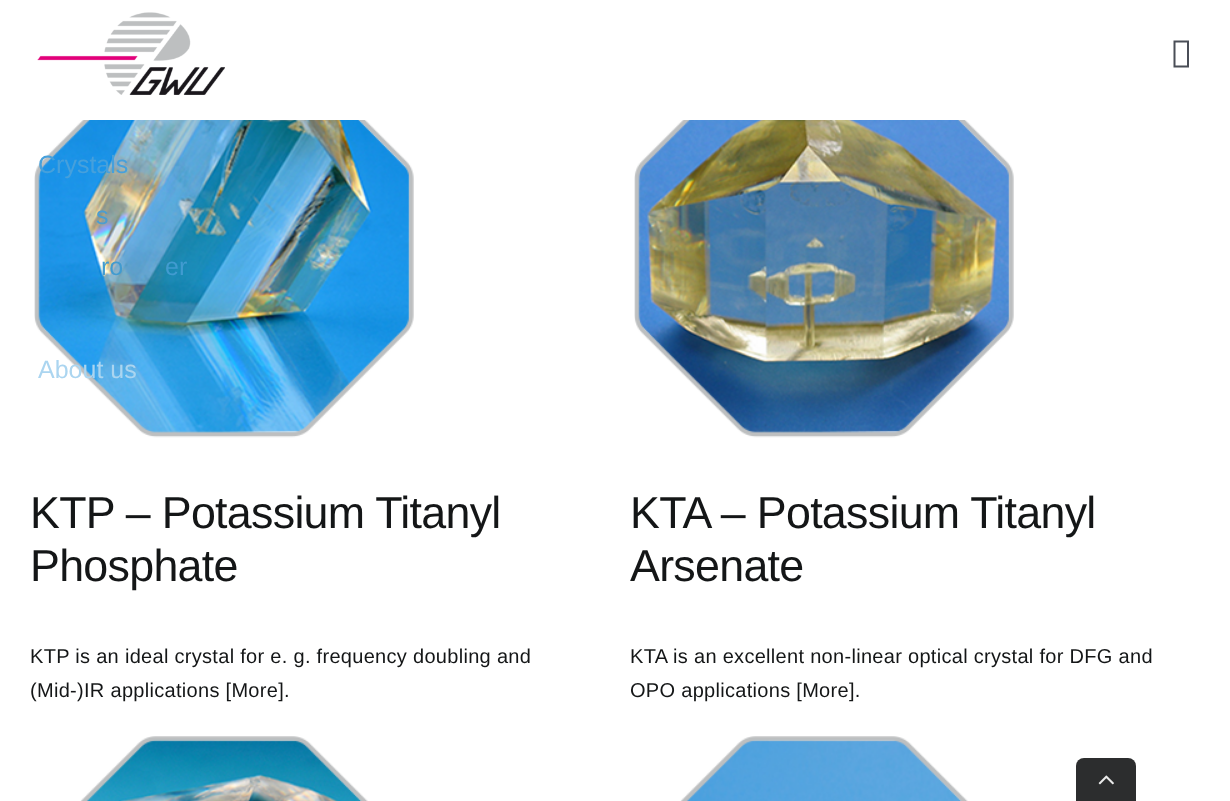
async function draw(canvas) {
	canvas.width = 1230;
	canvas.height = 801;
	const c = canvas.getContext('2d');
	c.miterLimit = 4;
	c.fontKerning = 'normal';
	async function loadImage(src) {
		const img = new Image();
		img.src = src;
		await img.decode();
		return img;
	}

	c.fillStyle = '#fff';
	c.fillRect(0, 0, 1230, 801);
	c.drawImage(await loadImage('img1.png'), 37, 12, 188, 83);
	c.fillStyle = '#4a4e57';
	c.beginPath();
	c.moveTo(1173.5, 67.5);
	c.lineTo(1173.5, 40.5);
	c.lineTo(1189, 40.5);
	c.lineTo(1189, 67.5);
	c.closePath();
	c.moveTo(1175.5, 65.5);
	c.lineTo(1187, 65.5);
	c.lineTo(1187, 42.5);
	c.lineTo(1175.5, 42.5);
	c.closePath();
	c.fill();
	c.drawImage(await loadImage('img2.png'), 34, 120, 380, 318);
	c.font = '25px Liberation Sans';
	c.fillStyle = '#46a0dc';
	c.fillText('Crystals', 38, 173);
	c.fillStyle = '#4b9dd1';
	c.fillText('s', 96, 224);
	c.fillStyle = '#419bd0';
	c.fillText('ro', 101, 275);
	c.fillText('er', 165, 275);
	c.fillStyle = '#abd5f0';
	c.fillText('About us', 38, 378);
	c.letterSpacing = '-0.7px';
	c.font = '44.75px Liberation Sans';
	c.fillStyle = '#141617';
	c.fillText('KTP – Potassium Titanyl', 30, 528);
	c.fillText('Phosphate', 30, 581);
	c.letterSpacing = '0.3px';
	c.font = '20px Liberation Sans';
	c.fillText('KTP is an ideal crystal for e. g. frequency doubling and', 30, 663);
	c.fillText('(Mid-)IR applications [More].', 30, 697);
	c.drawImage(await loadImage('img3.png'), 634, 120, 380, 318);
	c.letterSpacing = '-0.7px';
	c.font = '44.75px Liberation Sans';
	c.fillText('KTA – Potassium Titanyl', 630, 528);
	c.fillText('Arsenate', 630, 581);
	c.letterSpacing = '0.3px';
	c.font = '20px Liberation Sans';
	c.fillText('KTA is an excellent non-linear optical crystal for DFG and', 630, 663);
	c.fillText('OPO applications [More].', 630, 697);
	c.drawImage(await loadImage('img4.png'), 80, 736, 288, 65);
	c.drawImage(await loadImage('img5.png'), 680, 736, 288, 65);
	c.fillStyle = '#2c2d2e';
	c.beginPath();
	c.roundRect(1076, 758, 60, 43, [8, 8, 0, 0]);
	c.fill();
	c.drawImage(await loadImage('img6.png'), 1098, 775, 16, 10);
}

draw(document.querySelector('canvas'));
